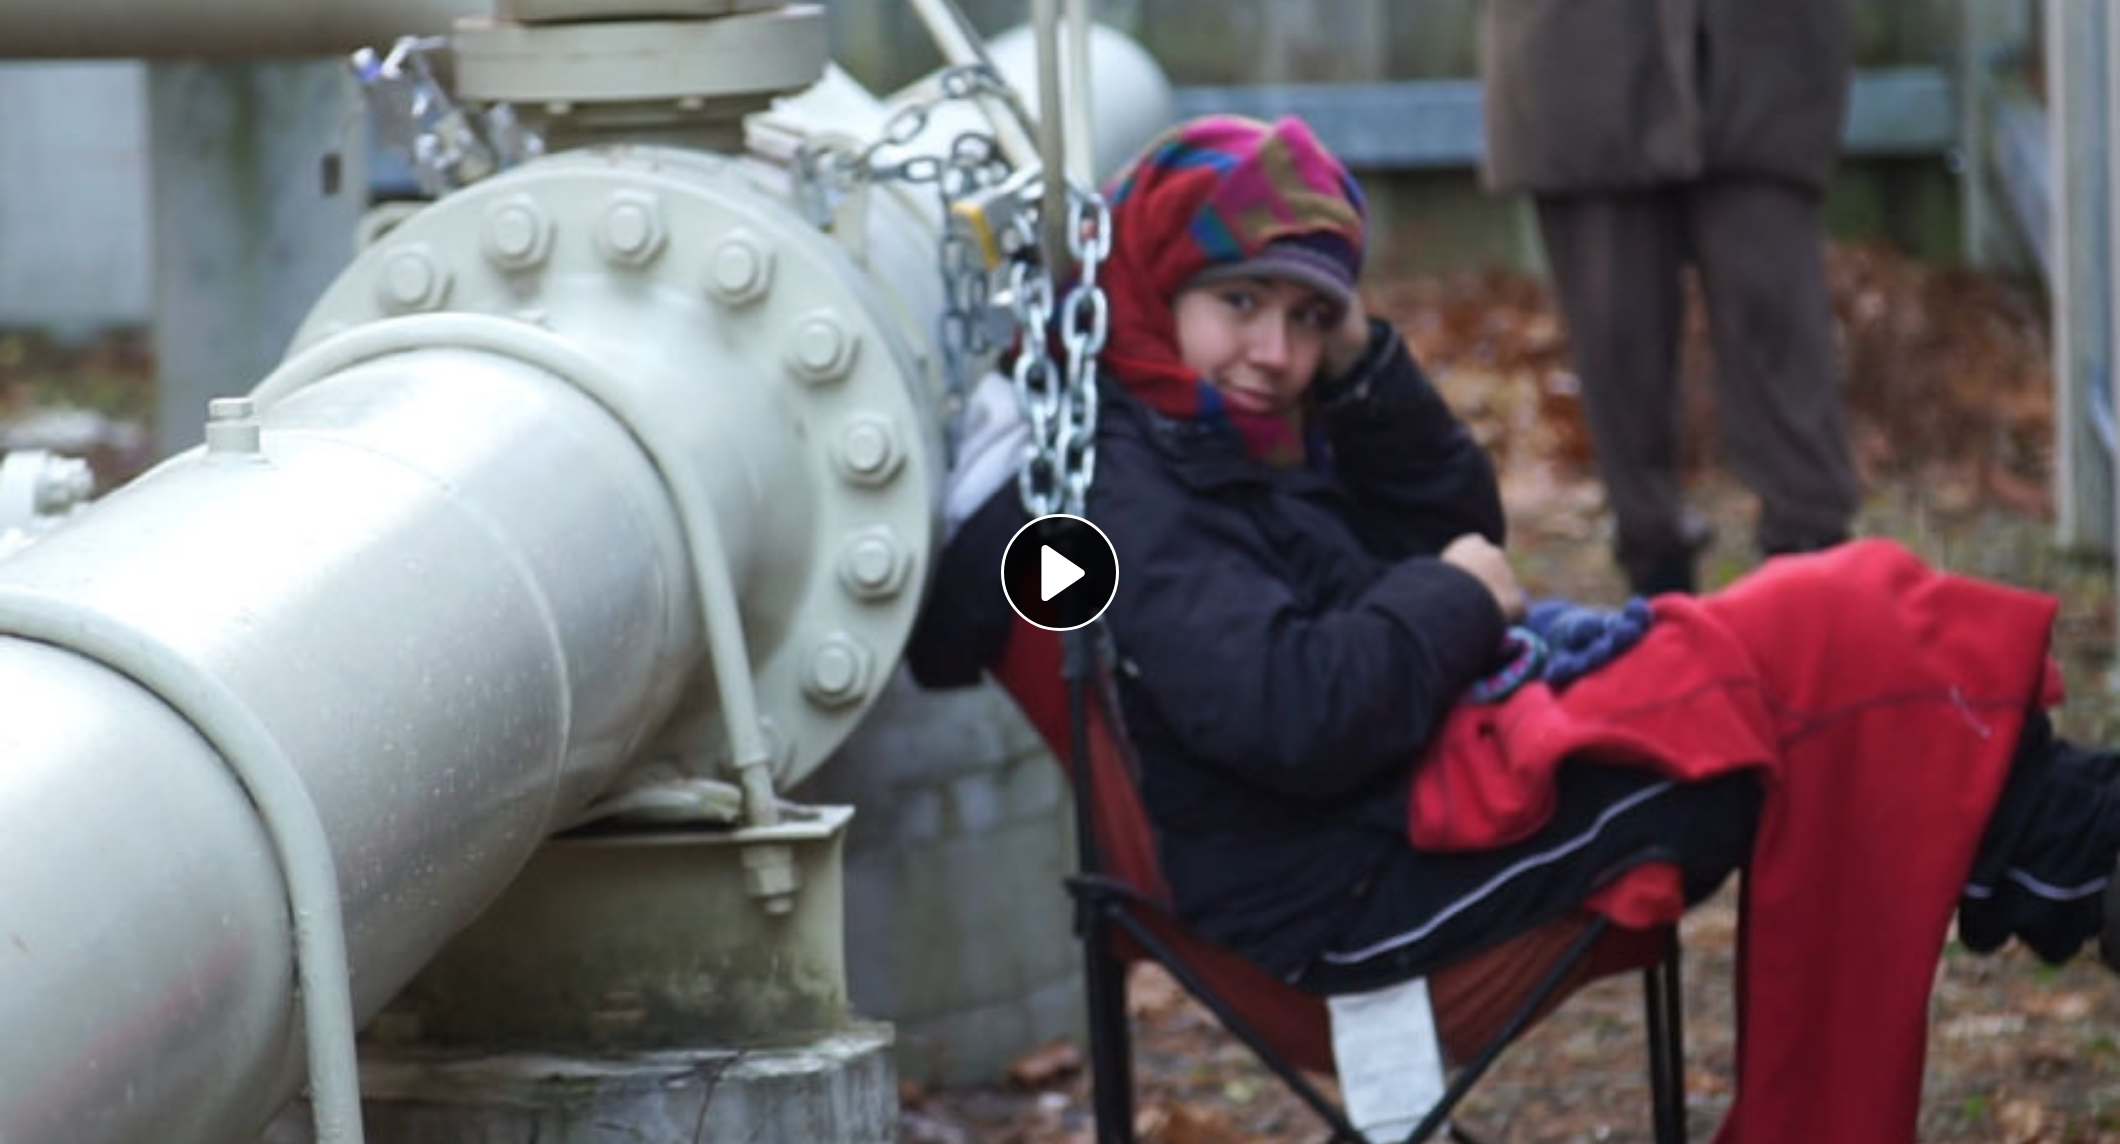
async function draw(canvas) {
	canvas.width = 2120;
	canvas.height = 1144;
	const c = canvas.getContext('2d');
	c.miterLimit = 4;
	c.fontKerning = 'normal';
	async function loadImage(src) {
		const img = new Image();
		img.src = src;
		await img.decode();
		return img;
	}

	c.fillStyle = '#fff';
	c.fillRect(0, 0, 2120, 1144);
	c.drawImage(await loadImage('img1.png'), 0, 0, 2120, 1144);
	c.fillStyle = '#000000cc';
	c.beginPath();
	c.roundRect(1002.5, 515.5, 115, 114, 57);
	c.fill();
	c.strokeStyle = '#fff';
	c.lineWidth = 3;
	c.stroke();
	c.drawImage(await loadImage('img2.png'), 1041, 545, 44, 56);
}

draw(document.querySelector('canvas'));
